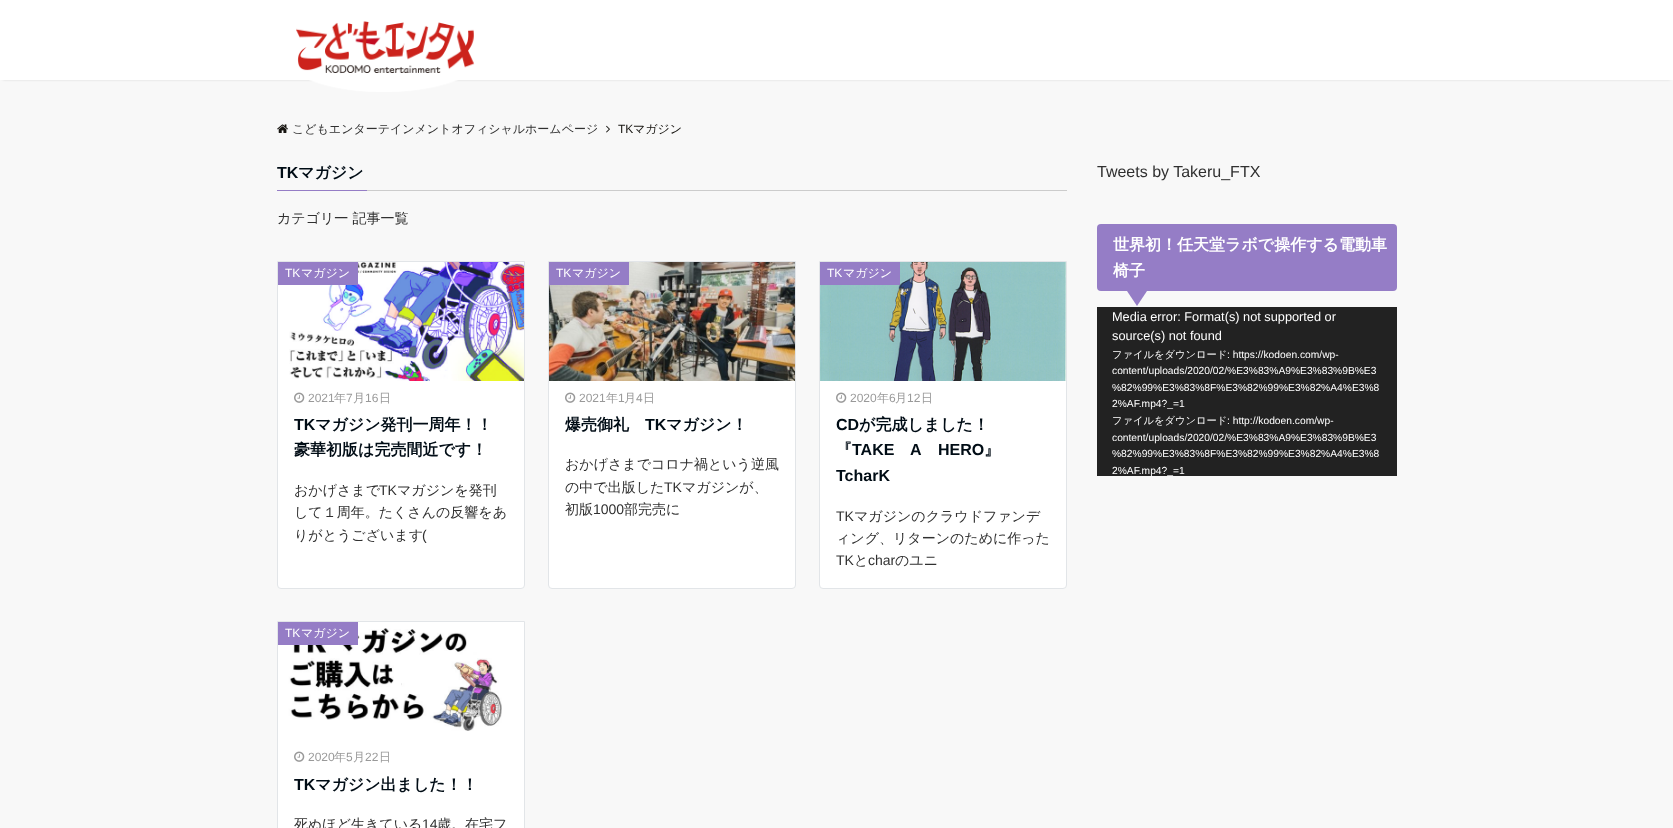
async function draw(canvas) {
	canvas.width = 1673;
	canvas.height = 828;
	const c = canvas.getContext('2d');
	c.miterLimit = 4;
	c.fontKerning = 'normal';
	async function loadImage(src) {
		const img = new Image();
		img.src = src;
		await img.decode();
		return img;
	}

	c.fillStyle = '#f8f8f8';
	c.fillRect(0, 0, 1673, 828);
	c.fillStyle = '#0000004d';
	c.filter = 'blur(1.5px)';
	c.beginPath();
	c.rect(3, 5, 1667, 74);
	c.fill();
	c.filter = 'none';
	c.fillStyle = '#fff';
	c.fillRect(0, 0, 1673, 80);
	c.drawImage(await loadImage('img1.png'), 296, 21, 179, 71);
	c.drawImage(await loadImage('img2.png'), 277, 124, 11, 9);
	c.font = '500 12px WenQuanYi Zen Hei';
	c.fillStyle = '#303030';
	c.fillText('こどもエンターテインメントオフィシャルホームページ', 292, 133);
	c.drawImage(await loadImage('img3.png'), 606, 125, 4, 8);
	c.font = '12px Liberation Sans';
	c.fillStyle = '#161410';
	c.fillText('TK', 618, 133);
	c.font = '500 12px WenQuanYi Zen Hei';
	c.fillText('マガジン', 633, 133);
	c.fillStyle = '#ccc';
	c.fillRect(367, 190, 700, 1);
	c.fillStyle = '#957dc6';
	c.fillRect(277, 190, 90, 1);
	c.font = 'bold 16px Liberation Sans';
	c.fillStyle = '#000c15';
	c.fillText('TK', 277, 178);
	c.font = 'bold 16px WenQuanYi Zen Hei';
	c.fillText('マガジン', 298, 178);
	c.font = '500 14px WenQuanYi Zen Hei';
	c.fillStyle = '#303030';
	c.fillText('カテゴリ一 記事一覧', 277, 223);
	c.fillStyle = '#fff';
	c.beginPath();
	c.roundRect(277.5, 261.5, 247, 327, [0, 0, 3.5, 3.5]);
	c.fill();
	c.strokeStyle = '#e2e5e8';
	c.stroke();
	c.drawImage(await loadImage('img4.png'), 289, 262, 235, 119);
	c.fillStyle = '#957dc6';
	c.fillRect(278, 262, 80, 23);
	c.font = '12px Liberation Sans';
	c.fillStyle = '#fff';
	c.fillText('TK', 285, 277);
	c.font = '500 12px WenQuanYi Zen Hei';
	c.fillText('マガジン', 301, 277);
	c.drawImage(await loadImage('img5.png'), 294, 392, 11, 11);
	c.font = '12px Liberation Sans';
	c.fillStyle = '#999';
	c.fillText('2021', 308, 402);
	c.font = '500 12px WenQuanYi Zen Hei';
	c.fillText('年', 334, 402);
	c.font = '12px Liberation Sans';
	c.fillText('7', 346, 402);
	c.font = '500 12px WenQuanYi Zen Hei';
	c.fillText('月', 353, 402);
	c.font = '12px Liberation Sans';
	c.fillText('16', 365, 402);
	c.font = '500 12px WenQuanYi Zen Hei';
	c.fillText('日', 379, 402);
	c.font = 'bold 16px Liberation Sans';
	c.fillStyle = '#000c15';
	c.fillText('TK', 294, 430);
	c.font = 'bold 16px WenQuanYi Zen Hei';
	c.fillText('マガジン発刊一周年！！', 315, 430);
	c.fillText('豪華初版は完売間近です！', 294, 455);
	c.font = '500 14px WenQuanYi Zen Hei';
	c.fillStyle = '#303030';
	c.fillText('おかげさまで', 294, 495);
	c.font = '14px Liberation Sans';
	c.fillText('TK', 379, 495);
	c.font = '500 14px WenQuanYi Zen Hei';
	for (const [text, x, y] of [
		['マガジンを発刊', 397, 495],
		['して１周年。たくさんの反響をあ', 294, 517],
		['りがとうございます', 294, 540],
	]) {
		c.fillText(text, x, y);
	}
	c.font = '14px Liberation Sans';
	c.fillText('(', 422, 540);
	c.fillStyle = '#fff';
	c.beginPath();
	c.roundRect(548.5, 261.5, 247, 327, [0, 0, 3.5, 3.5]);
	c.fill();
	c.stroke();
	c.drawImage(await loadImage('img6.png'), 549, 262, 246, 119);
	c.fillStyle = '#957dc6';
	c.fillRect(549, 262, 80, 23);
	c.font = '12px Liberation Sans';
	c.fillStyle = '#fff';
	c.fillText('TK', 556, 277);
	c.font = '500 12px WenQuanYi Zen Hei';
	c.fillText('マガジン', 572, 277);
	c.drawImage(await loadImage('img5.png'), 565, 392, 11, 11);
	c.font = '12px Liberation Sans';
	c.fillStyle = '#999';
	c.fillText('2021', 579, 402);
	c.font = '500 12px WenQuanYi Zen Hei';
	c.fillText('年', 606, 402);
	c.font = '12px Liberation Sans';
	c.fillText('1', 618, 402);
	c.font = '500 12px WenQuanYi Zen Hei';
	c.fillText('月', 624, 402);
	c.font = '12px Liberation Sans';
	c.fillText('4', 636, 402);
	c.font = '500 12px WenQuanYi Zen Hei';
	c.fillText('日', 643, 402);
	c.font = 'bold 16px WenQuanYi Zen Hei';
	c.fillStyle = '#000c15';
	c.fillText('爆売御礼', 565, 430);
	c.font = 'bold 16px Liberation Sans';
	c.fillText('TK', 645, 430);
	c.font = 'bold 16px WenQuanYi Zen Hei';
	c.fillText('マガジン！', 666, 430);
	c.font = '500 14px WenQuanYi Zen Hei';
	c.fillStyle = '#303030';
	c.fillText('おかげさまでコロナ禍という逆風', 565, 469);
	c.fillText('の中で出版した', 565, 492);
	c.font = '14px Liberation Sans';
	c.fillText('TK', 664, 492);
	c.font = '500 14px WenQuanYi Zen Hei';
	c.fillText('マガジンが、', 682, 492);
	c.fillText('初版', 565, 514);
	c.font = '14px Liberation Sans';
	c.fillText('1000', 593, 514);
	c.font = '500 14px WenQuanYi Zen Hei';
	c.fillText('部完売に', 624, 514);
	c.fillStyle = '#fff';
	c.beginPath();
	c.roundRect(819.5, 261.5, 247, 327, [0, 0, 3.5, 3.5]);
	c.fill();
	c.stroke();
	c.drawImage(await loadImage('img7.png'), 820, 262, 246, 119);
	c.fillStyle = '#957dc6';
	c.fillRect(820, 262, 80, 23);
	c.font = '12px Liberation Sans';
	c.fillStyle = '#fff';
	c.fillText('TK', 827, 277);
	c.font = '500 12px WenQuanYi Zen Hei';
	c.fillText('マガジン', 843, 277);
	c.drawImage(await loadImage('img5.png'), 836, 392, 11, 11);
	c.font = '12px Liberation Sans';
	c.fillStyle = '#999';
	c.fillText('2020', 850, 402);
	c.font = '500 12px WenQuanYi Zen Hei';
	c.fillText('年', 877, 402);
	c.font = '12px Liberation Sans';
	c.fillText('6', 889, 402);
	c.font = '500 12px WenQuanYi Zen Hei';
	c.fillText('月', 895, 402);
	c.font = '12px Liberation Sans';
	c.fillText('12', 907, 402);
	c.font = '500 12px WenQuanYi Zen Hei';
	c.fillText('日', 921, 402);
	c.font = 'bold 16px Liberation Sans';
	c.fillStyle = '#000c15';
	c.fillText('CD', 836, 430);
	c.font = 'bold 16px WenQuanYi Zen Hei';
	c.fillText('が完成しました！', 859, 430);
	c.fillText('『', 836, 455);
	c.font = 'bold 16px Liberation Sans';
	for (const [text, x, y] of [
		['TAKE', 852, 455],
		['A', 910, 455],
		['HERO', 938, 455],
	]) {
		c.fillText(text, x, y);
	}
	c.font = 'bold 16px WenQuanYi Zen Hei';
	c.fillText('』', 984, 455);
	c.font = 'bold 16px Liberation Sans';
	c.fillText('TcharK', 836, 481);
	c.font = '14px Liberation Sans';
	c.fillStyle = '#303030';
	c.fillText('TK', 836, 521);
	c.font = '500 14px WenQuanYi Zen Hei';
	c.fillText('マガジンのクラウドファンデ', 854, 521);
	c.fillText('ィング、リターンのために作った', 836, 543);
	c.font = '14px Liberation Sans';
	c.fillText('TK', 836, 565);
	c.font = '500 14px WenQuanYi Zen Hei';
	c.fillText('と', 854, 565);
	c.font = '14px Liberation Sans';
	c.fillText('char', 868, 565);
	c.font = '500 14px WenQuanYi Zen Hei';
	c.fillText('のユニ', 895, 565);
	c.fillStyle = '#fff';
	c.beginPath();
	c.rect(277.5, 621.5, 247, 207);
	c.fill();
	c.stroke();
	c.drawImage(await loadImage('img8.png'), 287, 628, 215, 103);
	c.fillStyle = '#957dc6';
	c.fillRect(278, 622, 80, 23);
	c.font = '12px Liberation Sans';
	c.fillStyle = '#fff';
	c.fillText('TK', 285, 637);
	c.font = '500 12px WenQuanYi Zen Hei';
	c.fillText('マガジン', 301, 637);
	c.drawImage(await loadImage('img5.png'), 294, 751, 11, 11);
	c.font = '12px Liberation Sans';
	c.fillStyle = '#999';
	c.fillText('2020', 308, 761);
	c.font = '500 12px WenQuanYi Zen Hei';
	c.fillText('年', 334, 761);
	c.font = '12px Liberation Sans';
	c.fillText('5', 346, 761);
	c.font = '500 12px WenQuanYi Zen Hei';
	c.fillText('月', 353, 761);
	c.font = '12px Liberation Sans';
	c.fillText('22', 365, 761);
	c.font = '500 12px WenQuanYi Zen Hei';
	c.fillText('日', 379, 761);
	c.font = 'bold 16px Liberation Sans';
	c.fillStyle = '#000c15';
	c.fillText('TK', 294, 790);
	c.font = 'bold 16px WenQuanYi Zen Hei';
	c.fillText('マガジン出ました！！', 315, 790);
	c.font = '500 14px WenQuanYi Zen Hei';
	c.fillStyle = '#303030';
	c.fillText('死ぬほど生きている', 294, 829);
	c.font = '14px Liberation Sans';
	c.fillText('14', 422, 829);
	c.font = '500 14px WenQuanYi Zen Hei';
	c.fillText('歳。在宅フ', 437, 829);
	c.font = '16px Liberation Sans';
	c.fillText('Tweets by Takeru_FTX', 1097, 177);
	c.fillStyle = '#957dc6';
	c.beginPath();
	c.roundRect(1097, 224, 300, 67, 4);
	c.fill();
	c.font = 'bold 16px WenQuanYi Zen Hei';
	c.fillStyle = '#fff';
	c.fillText('世界初！任天堂ラボで操作する電動車', 1113, 250);
	c.fillText('椅子', 1113, 276);
	c.fillStyle = '#957dc6';
	c.beginPath();
	c.moveTo(1127, 291);
	c.lineTo(1147, 291);
	c.lineTo(1137, 306);
	c.closePath();
	c.fill();
	c.fillStyle = '#222';
	c.fillRect(1097, 307, 300, 169);
	c.font = '12.75px Liberation Sans';
	c.fillStyle = '#fff';
	c.fillText('Media error: Format(s) not supported or', 1112, 321);
	c.fillText('source(s) not found', 1112, 340);
	c.font = '500 10.25px WenQuanYi Zen Hei';
	c.fillText('ファイルをダウンロード', 1112, 358);
	c.font = '10.25px Liberation Sans';
	for (const [text, x, y] of [
		[': https://kodoen.com/wp-', 1227, 358],
		['content/uploads/2020/02/%E3%83%A9%E3%83%9B%E3', 1112, 374],
		['%82%99%E3%83%8F%E3%82%99%E3%82%A4%E3%8', 1112, 391],
		['2%AF.mp4?_=1', 1112, 407],
	]) {
		c.fillText(text, x, y);
	}
	c.font = '500 10.25px WenQuanYi Zen Hei';
	c.fillText('ファイルをダウンロード', 1112, 424);
	c.font = '10.25px Liberation Sans';
	for (const [text, x, y] of [
		[': http://kodoen.com/wp-', 1227, 424],
		['content/uploads/2020/02/%E3%83%A9%E3%83%9B%E3', 1112, 441],
		['%82%99%E3%83%8F%E3%82%99%E3%82%A4%E3%8', 1112, 457],
		['2%AF.mp4?_=1', 1112, 474],
	]) {
		c.fillText(text, x, y);
	}
}

draw(document.querySelector('canvas'));
